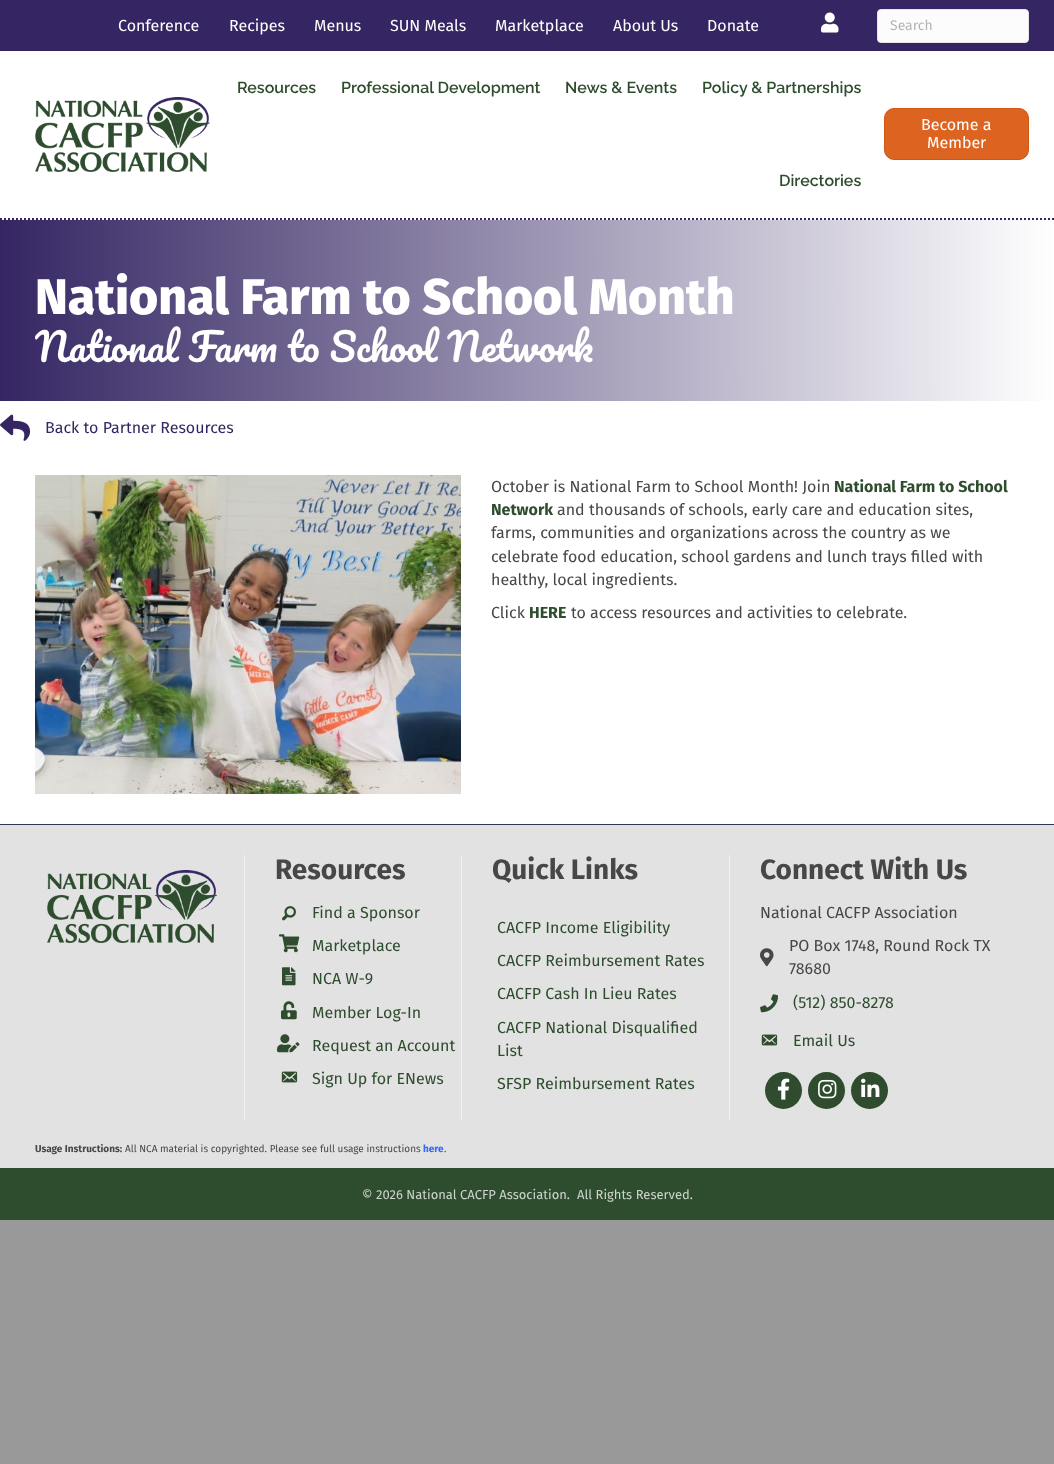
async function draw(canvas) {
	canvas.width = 1054;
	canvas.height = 1464;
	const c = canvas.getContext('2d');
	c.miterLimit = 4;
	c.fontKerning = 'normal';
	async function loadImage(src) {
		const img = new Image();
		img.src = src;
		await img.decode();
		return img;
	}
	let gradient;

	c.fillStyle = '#999';
	c.fillRect(0, 0, 1054, 1464);
	c.fillStyle = '#352663';
	c.fillRect(0, 0, 1054, 51);
	c.font = '16px Fira Sans';
	c.fillStyle = '#fff';
	for (const [text, x, y] of [
		['Conference', 118, 31],
		['Recipes', 229, 31],
		['Menus', 314, 31],
		['SUN Meals', 390, 31],
		['Marketplace', 495, 31],
		['About Us', 613, 31],
		['Donate', 707, 31],
	]) {
		c.fillText(text, x, y);
	}
	c.drawImage(await loadImage('img1.png'), 821, 12, 18, 21);
	c.fillStyle = '#fcfcfc';
	c.beginPath();
	c.roundRect(877.5, 9.5, 151, 33, 3.5);
	c.fill();
	c.strokeStyle = '#e6e6e6';
	c.stroke();
	c.font = '14px Fira Sans';
	c.fillStyle = '#b4b4b4';
	c.fillText('Search', 890, 30);
	c.fillStyle = '#fff';
	c.fillRect(0, 51, 1054, 169);
	c.beginPath();
	c.moveTo(0, 219);
	c.lineTo(1054, 219);
	c.strokeStyle = '#362063';
	c.lineWidth = 2;
	c.setLineDash([2, 2]);
	c.stroke();
	c.drawImage(await loadImage('img2.png'), 35, 97, 175, 75);
	c.font = '600 16px Raleway';
	c.fillStyle = '#2e4c2e';
	for (const [text, x, y] of [
		['Resources', 237, 93],
		['Professional Development', 341, 93],
		['News & Events', 565, 93],
		['Policy & Partnerships', 702, 93],
		['Directories', 779, 186],
	]) {
		c.fillText(text, x, y);
	}
	c.fillStyle = '#dd6420';
	c.beginPath();
	c.roundRect(884.5, 108.5, 144, 51, 9.5);
	c.fill();
	c.strokeStyle = '#d15814';
	c.lineWidth = 1;
	c.setLineDash([]);
	c.stroke();
	c.font = '16px Fira Sans';
	c.fillStyle = '#fff';
	c.fillText('Become a', 921, 130);
	c.fillText('Member', 927, 148);
	c.fillRect(0, 401, 1054, 423);
	gradient = c.createLinearGradient(0, 311, 1054, 310);
	gradient.addColorStop(0, '#352663');
	gradient.addColorStop(1, '#fff');
	c.fillStyle = gradient;
	c.fillRect(0, 220, 1054, 181);
	c.font = '800 50px Fira Sans';
	c.fillStyle = '#fff';
	c.fillText('National Farm to School Month', 35, 314);
	c.font = '38px Pacifico';
	c.fillText('National Farm to School Network', 35, 362);
	c.drawImage(await loadImage('img3.png'), 0, 414, 31, 27);
	c.font = '16px Fira Sans';
	c.fillStyle = '#352663';
	c.fillText('Back to Partner Resources', 45, 433);
	c.drawImage(await loadImage('img4.png'), 35, 475, 426, 319);
	c.fillStyle = '#474747';
	c.fillText('October is National Farm to School Month! Join', 491, 492);
	c.font = 'bold 16px Fira Sans';
	c.fillStyle = '#2e4c2e';
	c.fillText('National Farm to School', 834, 492);
	c.fillText('Network', 491, 515);
	c.font = '16px Fira Sans';
	c.fillStyle = '#474747';
	for (const [text, x, y] of [
		['and thousands of schools, early care and education sites,', 557, 515],
		['farms, communities and organizations across the country as we', 491, 538],
		['celebrate food education, school gardens and lunch trays filled with', 491, 562],
		['healthy, local ingredients.', 491, 585],
		['Click', 491, 618],
	]) {
		c.fillText(text, x, y);
	}
	c.font = 'bold 16px Fira Sans';
	c.fillStyle = '#2e4c2e';
	c.fillText('HERE', 529, 618);
	c.font = '16px Fira Sans';
	c.fillStyle = '#474747';
	c.fillText('to access resources and activities to celebrate.', 571, 618);
	c.fillStyle = '#e2e2e2';
	c.fillRect(0, 825, 1054, 343);
	c.fillStyle = '#2c3a56';
	c.fillRect(0, 824, 1054, 1);
	c.drawImage(await loadImage('img5.png'), 47, 870, 170, 73);
	c.fillStyle = '#f2f2f2';
	c.fillRect(244, 855, 1, 265);
	c.font = 'bold 28px Fira Sans';
	c.fillStyle = '#474747';
	c.fillText('Resources', 275, 879);
	c.drawImage(await loadImage('img6.png'), 282, 906, 14, 15);
	c.font = '16px Fira Sans';
	c.fillStyle = '#2e4c2e';
	c.fillText('Find a Sponsor', 312, 918);
	c.drawImage(await loadImage('img7.png'), 279, 934, 21, 19);
	c.fillText('Marketplace', 312, 951);
	c.drawImage(await loadImage('img8.png'), 282, 967, 14, 19);
	c.fillText('NCA W-9', 312, 984);
	c.drawImage(await loadImage('img9.png'), 281, 1001, 16, 19);
	c.fillText('Member Log-In', 312, 1018);
	c.drawImage(await loadImage('img10.png'), 277, 1034, 23, 19);
	c.drawImage(await loadImage('img11.png'), 281, 1071, 17, 12);
	c.fillText('Request an Account', 312, 1051);
	c.fillText('Sign Up for ENews', 312, 1084);
	c.fillStyle = '#f2f2f2';
	c.fillRect(461, 855, 1, 265);
	c.font = 'bold 28px Fira Sans';
	c.fillStyle = '#474747';
	c.fillText('Quick Links', 492, 879);
	c.font = '16px Fira Sans';
	c.fillStyle = '#2e4c2e';
	for (const [text, x, y] of [
		['CACFP Income Eligibility', 497, 933],
		['CACFP Reimbursement Rates', 497, 966],
		['CACFP Cash In Lieu Rates', 497, 999],
		['CACFP National Disqualified', 497, 1033],
		['List', 497, 1056],
		['SFSP Reimbursement Rates', 497, 1089],
	]) {
		c.fillText(text, x, y);
	}
	c.fillStyle = '#f2f2f2';
	c.fillRect(729, 855, 1, 265);
	c.font = 'bold 28px Fira Sans';
	c.fillStyle = '#474747';
	c.fillText('Connect With Us', 760, 879);
	c.font = '16px Fira Sans';
	c.fillText('National CACFP Association', 760, 918);
	c.drawImage(await loadImage('img12.png'), 760, 948, 14, 19);
	c.fillText('PO Box 1748, Round Rock TX', 789, 951);
	c.fillText('78680', 789, 974);
	c.drawImage(await loadImage('img13.png'), 760, 994, 18, 19);
	c.fillStyle = '#2e4c2e';
	c.fillText('(512) 850-8278', 793, 1008);
	c.drawImage(await loadImage('img11.png'), 761, 1034, 17, 12);
	c.fillText('Email Us', 793, 1046);
	c.fillStyle = '#2f4c2e';
	c.beginPath();
	c.arc(783.5, 1090.5, 18.5, 0, 2 * Math.PI);
	c.fill();
	c.drawImage(await loadImage('img14.png'), 777, 1078, 13, 22);
	c.beginPath();
	c.arc(826.5, 1090.5, 18.5, 0, 2 * Math.PI);
	c.fill();
	c.drawImage(await loadImage('img15.png'), 818, 1079, 19, 20);
	c.beginPath();
	c.arc(869.5, 1090.5, 18.5, 0, 2 * Math.PI);
	c.fill();
	c.drawImage(await loadImage('img16.png'), 861, 1078, 19, 19);
	c.font = 'bold 10px Fira Sans';
	c.fillStyle = '#474747';
	c.fillText('Usage Instructions:', 35, 1152);
	c.font = '10px Fira Sans';
	c.fillText('All NCA material is copyrighted. Please see full usage instructions', 125, 1152);
	c.font = 'bold 10px Fira Sans';
	c.fillStyle = '#36f';
	c.fillText('here', 423, 1152);
	c.font = '10px Fira Sans';
	c.fillStyle = '#474747';
	c.fillText('.', 444, 1152);
	c.fillStyle = '#2e4c2e';
	c.fillRect(0, 1168, 1054, 52);
	c.font = '13px Fira Sans';
	c.fillStyle = '#cdd4cd';
	c.fillText('© 2026 National CACFP Association.', 362, 1199);
	c.fillText('All Rights Reserved.', 577, 1199);
}

draw(document.querySelector('canvas'));
